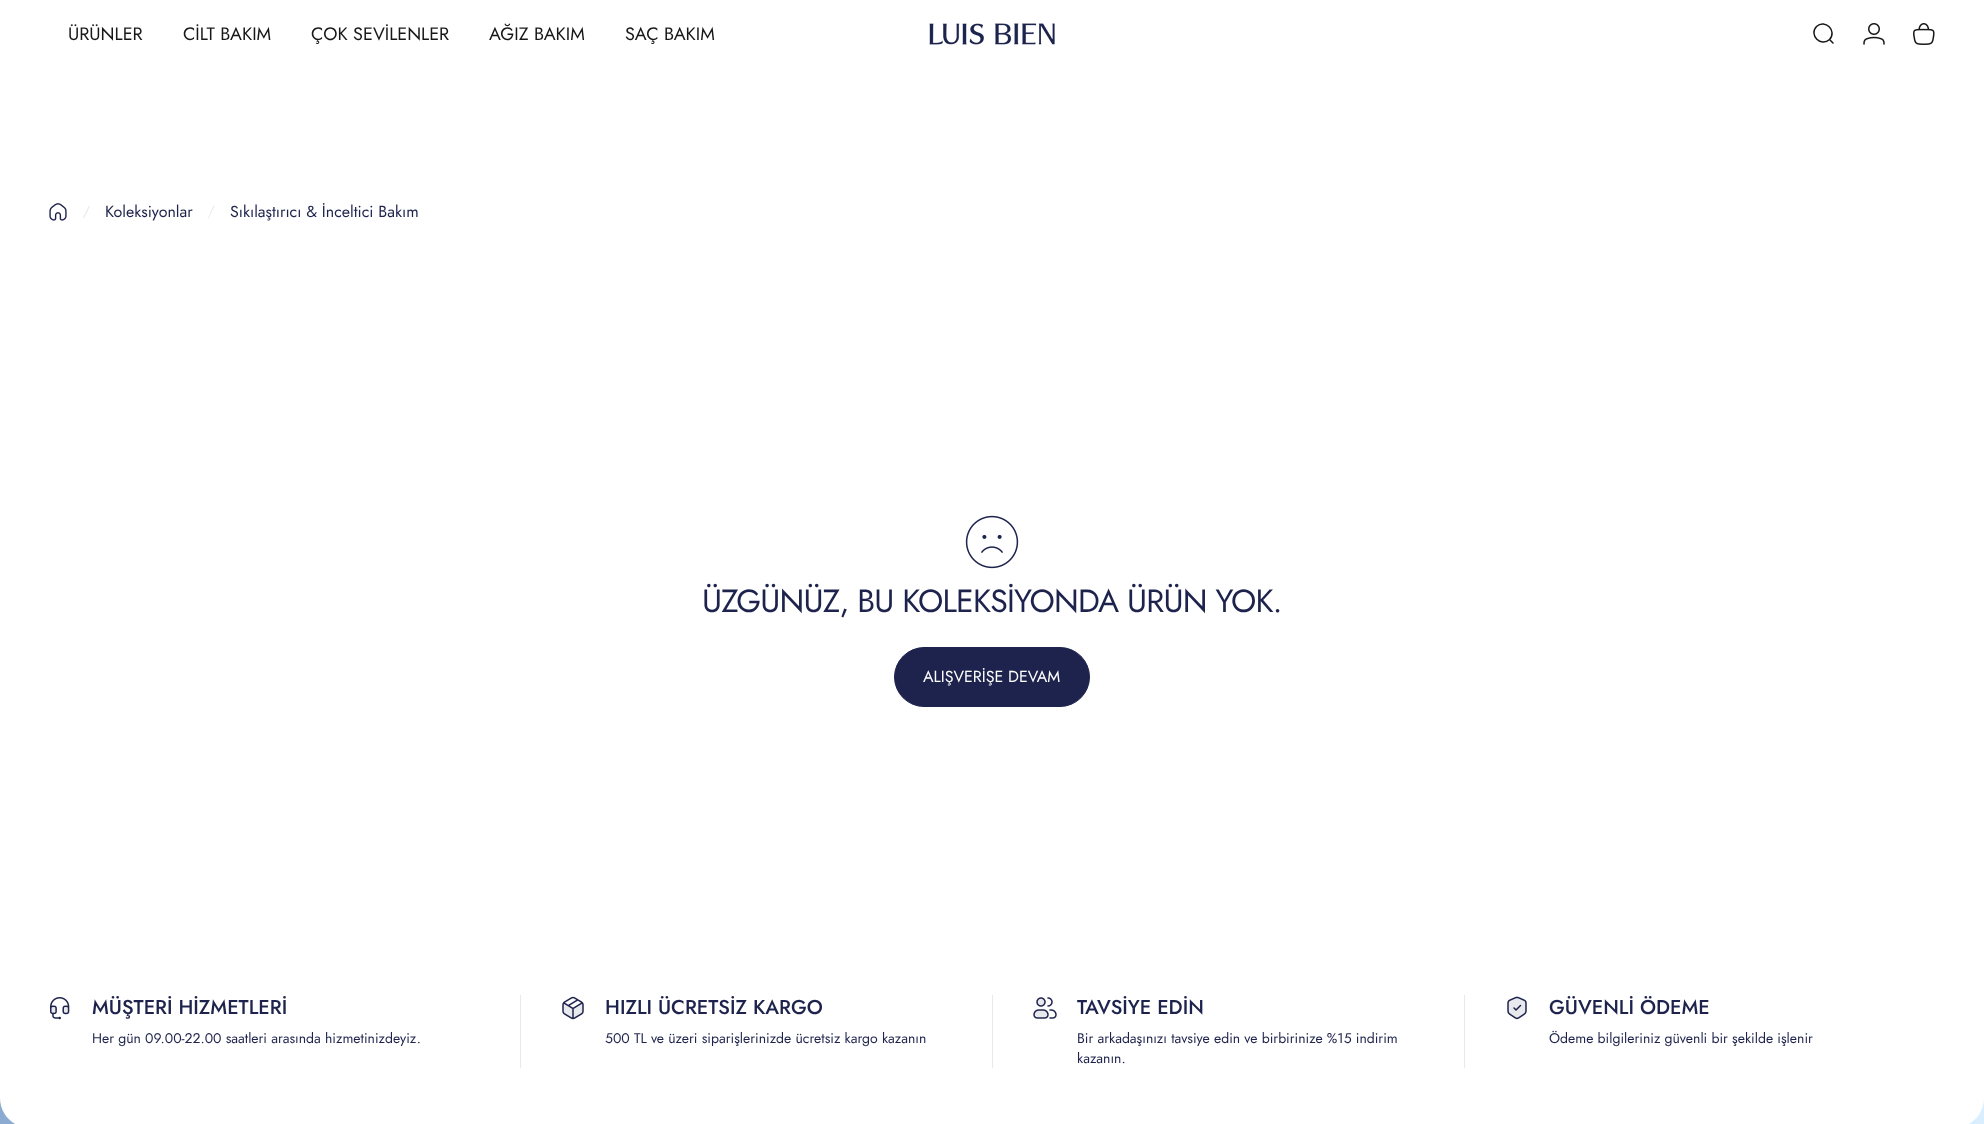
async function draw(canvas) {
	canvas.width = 1984;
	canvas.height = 1124;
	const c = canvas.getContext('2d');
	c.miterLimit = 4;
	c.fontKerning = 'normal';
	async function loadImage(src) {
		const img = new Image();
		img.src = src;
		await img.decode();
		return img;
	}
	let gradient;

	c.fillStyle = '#fff';
	c.fillRect(0, 0, 1984, 1124);
	c.font = '18px Jost';
	c.fillStyle = '#171717';
	for (const [text, x, y] of [
		['ÜRÜNLER', 68, 40],
		['CİLT BAKIM', 183, 40],
		['ÇOK SEVİLENLER', 311, 40],
		['AĞIZ BAKIM', 489, 40],
		['SAÇ BAKIM', 625, 40],
	]) {
		c.fillText(text, x, y);
	}
	c.drawImage(await loadImage('img1.png'), 929, 23, 126, 22);
	c.beginPath();
	c.moveTo(1833, 43);
	c.lineTo(1829.5, 39.5);
	c.moveTo(1829.5, 39.5);
	c.bezierCurveTo(1837.5, 31, 1825, 18.5, 1816.5, 26.5);
	c.bezierCurveTo(1808.5, 35, 1821, 47.5, 1829.5, 39.5);
	c.closePath();
	c.strokeStyle = '#171717';
	c.lineWidth = 1.5;
	c.lineCap = 'round';
	c.stroke();
	c.drawImage(await loadImage('img2.png'), 1863, 23, 22, 22);
	c.drawImage(await loadImage('img3.png'), 1913, 23, 22, 22);
	c.drawImage(await loadImage('img4.png'), 49, 203, 18, 18);
	c.fillStyle = '#e8e9ed';
	c.beginPath();
	c.moveTo(89, 205.5);
	c.lineTo(90, 206);
	c.lineTo(84, 218.5);
	c.lineTo(83, 218);
	c.closePath();
	c.fill();
	c.font = '16px Jost';
	c.fillStyle = '#1d234c';
	c.fillText('Koleksiyonlar', 105, 217);
	c.fillStyle = '#e8e9ed';
	c.beginPath();
	c.moveTo(213.5, 205.5);
	c.lineTo(214.5, 206);
	c.lineTo(208.5, 218.5);
	c.lineTo(208, 218);
	c.closePath();
	c.fill();
	c.fillStyle = '#1d234c';
	c.fillText('Sıkılaştırıcı & İnceltici Bakım', 230, 217);
	c.drawImage(await loadImage('img5.png'), 965, 515, 54, 54);
	c.letterSpacing = '-0.8px';
	c.font = '32px Jost';
	c.fillText('ÜZGÜNÜZ, BU KOLEKSİYONDA ÜRÜN YOK.', 702, 612);
	c.beginPath();
	c.roundRect(894.5, 647.5, 195, 59, 29.5);
	c.fill();
	c.strokeStyle = '#1d234c';
	c.lineWidth = 1;
	c.stroke();
	c.letterSpacing = '0px';
	c.font = '16px Jost';
	c.fillStyle = '#fff';
	c.fillText('ALIŞVERİŞE DEVAM', 923, 682);
	gradient = c.createLinearGradient(0, 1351, 1984, 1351);
	gradient.addColorStop(0, '#8babd3');
	gradient.addColorStop(1, '#d9efff');
	c.fillStyle = gradient;
	c.fillRect(0, 1098, 1984, 26);
	c.fillStyle = '#fff';
	c.beginPath();
	c.moveTo(0, 935);
	c.lineTo(1984, 935);
	c.lineTo(1984, 1098);
	c.bezierCurveTo(1984, 1114.5, 1970.5, 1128, 1954, 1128);
	c.lineTo(30, 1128);
	c.bezierCurveTo(13.5, 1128, 0, 1114.5, 0, 1098);
	c.closePath();
	c.fill();
	c.drawImage(await loadImage('img6.png'), 50, 997, 20, 23);
	c.font = '500 20px Jost';
	c.fillStyle = '#1d234c';
	c.fillText('MÜŞTERİ HİZMETLERİ', 92, 1014);
	c.font = '14px Jost';
	c.fillText('Her gün 09.00-22.00 saatleri arasında hizmetinizdeyiz.', 92, 1043);
	c.fillStyle = '#e8e9ed';
	c.fillRect(520, 995, 1, 73);
	c.drawImage(await loadImage('img7.png'), 562, 996, 22, 24);
	c.font = '500 20px Jost';
	c.fillStyle = '#1d234c';
	c.fillText('HIZLI ÜCRETSİZ KARGO', 605, 1014);
	c.font = '14px Jost';
	c.fillText('500 TL ve üzeri siparişlerinizde ücretsiz kargo kazanın', 605, 1043);
	c.fillStyle = '#e8e9ed';
	c.fillRect(992, 995, 1, 73);
	c.drawImage(await loadImage('img8.png'), 1033, 997, 24, 22);
	c.font = '500 20px Jost';
	c.fillStyle = '#1d234c';
	c.fillText('TAVSİYE EDİN', 1077, 1014);
	c.font = '14px Jost';
	c.fillText('Bir arkadaşınızı tavsiye edin ve birbirinize %15 indirim', 1077, 1043);
	c.fillText('kazanın.', 1077, 1063);
	c.fillStyle = '#e8e9ed';
	c.fillRect(1464, 995, 1, 73);
	c.drawImage(await loadImage('img9.png'), 1507, 996, 20, 24);
	c.font = '500 20px Jost';
	c.fillStyle = '#1d234c';
	c.fillText('GÜVENLİ ÖDEME', 1549, 1014);
	c.font = '14px Jost';
	c.fillText('Ödeme bilgileriniz güvenli bir şekilde işlenir', 1549, 1043);
}

draw(document.querySelector('canvas'));
